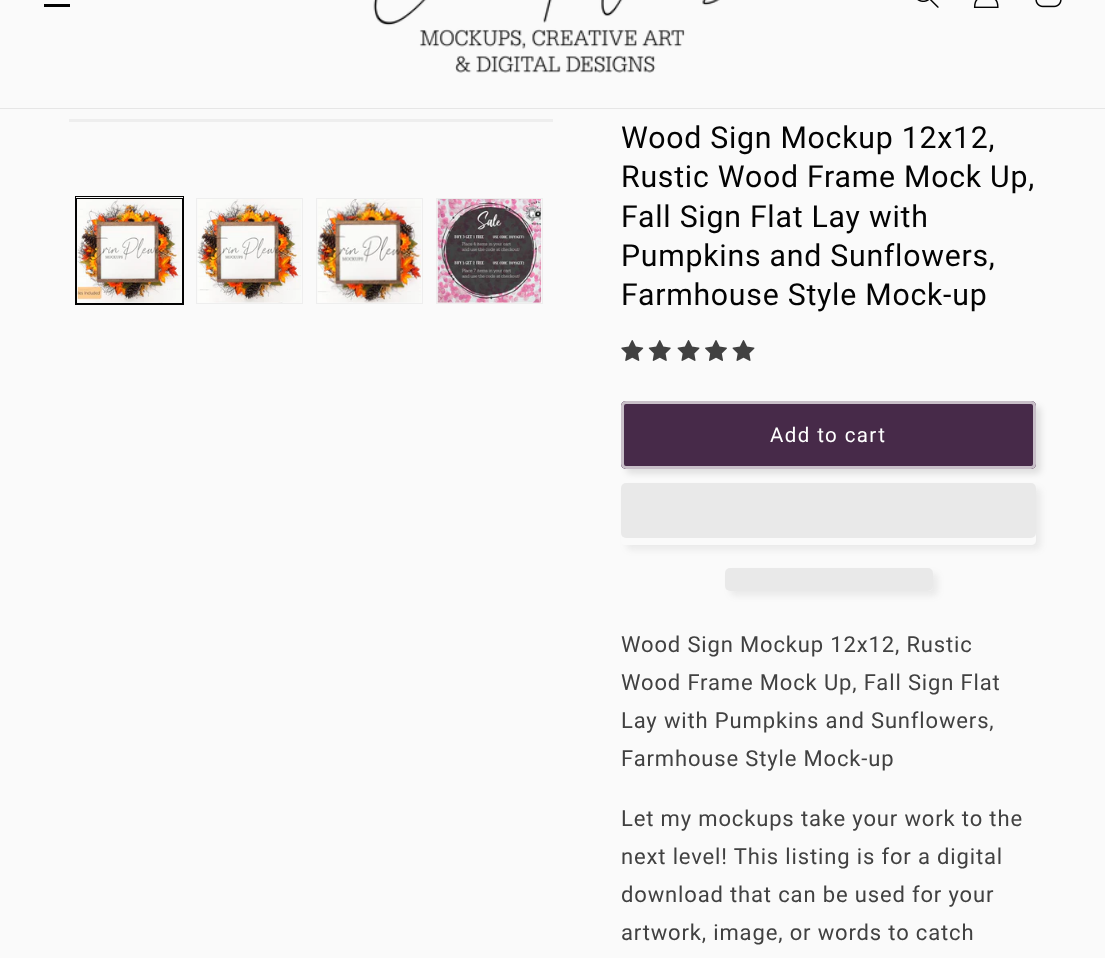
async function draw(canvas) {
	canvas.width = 1105;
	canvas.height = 958;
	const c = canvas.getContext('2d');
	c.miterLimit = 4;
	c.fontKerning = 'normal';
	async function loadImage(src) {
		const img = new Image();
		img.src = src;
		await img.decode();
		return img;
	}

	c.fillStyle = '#fafafa';
	c.fillRect(0, 0, 1105, 958);
	c.fillStyle = '#e6e6e6';
	c.fillRect(0, 108, 1105, 1);
	c.fillStyle = '#030303';
	c.fillRect(44, 4, 26, 3);
	c.drawImage(await loadImage('img1.png'), 373, 0, 347, 73);
	c.drawImage(await loadImage('img2.png'), 917, 0, 22, 8);
	c.drawImage(await loadImage('img3.png'), 973, 0, 26, 8);
	c.drawImage(await loadImage('img4.png'), 1035, 0, 27, 8);
	c.fillStyle = '#eee';
	c.fillRect(69, 119, 484, 3);
	c.strokeStyle = '#030303';
	c.strokeRect(75.5, 196.5, 108, 108);
	c.strokeRect(76.5, 198.5, 106, 105);
	c.drawImage(await loadImage('img5.png'), 77, 199, 104, 104);
	c.strokeStyle = '#eee';
	c.strokeRect(196.5, 198.5, 106, 105);
	c.drawImage(await loadImage('img6.png'), 197, 199, 104, 104);
	c.strokeRect(316.5, 198.5, 106, 105);
	c.drawImage(await loadImage('img7.png'), 317, 199, 104, 104);
	c.strokeRect(436.5, 198.5, 106, 105);
	c.drawImage(await loadImage('img8.png'), 437, 199, 105, 104);
	c.letterSpacing = '0.75px';
	c.font = '30.25px Roboto';
	c.fillStyle = '#030303';
	for (const [text, x, y] of [
		['Wood Sign Mockup 12x12,', 621, 148],
		['Rustic Wood Frame Mock Up,', 621, 187],
		['Fall Sign Flat Lay with', 621, 227],
		['Pumpkins and Sunflowers,', 621, 266],
		['Farmhouse Style Mock-up', 621, 305],
	]) {
		c.fillText(text, x, y);
	}
	c.drawImage(await loadImage('img9.png'), 621, 340, 23, 21);
	c.drawImage(await loadImage('img10.png'), 648, 340, 23, 21);
	c.drawImage(await loadImage('img11.png'), 677, 340, 23, 21);
	c.drawImage(await loadImage('img12.png'), 705, 340, 22, 21);
	c.drawImage(await loadImage('img11.png'), 732, 340, 23, 21);
	c.fillStyle = '#0303031a';
	c.filter = 'blur(3px)';
	c.beginPath();
	c.roundRect(626, 406, 415, 68, 5);
	c.fill();
	c.filter = 'none';
	c.fillStyle = '#472a49';
	c.beginPath();
	c.roundRect(621, 401, 415, 68, 5);
	c.fill();
	c.beginPath();
	c.roundRect(622.5, 402.5, 412, 65, 3.5);
	c.strokeStyle = '#472a49';
	c.lineWidth = 3;
	c.stroke();
	c.beginPath();
	c.roundRect(622.5, 402.5, 412, 65, 3.5);
	c.strokeStyle = '#ffffffb3';
	c.stroke();
	c.letterSpacing = '1.4px';
	c.font = '20.5px Roboto';
	c.fillStyle = '#fff';
	c.fillText('Add to cart', 770, 442);
	c.save();
	c.beginPath();
	c.moveTo(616, 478);
	c.lineTo(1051, 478);
	c.lineTo(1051, 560);
	c.lineTo(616, 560);
	c.closePath();
	c.moveTo(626, 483);
	c.lineTo(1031, 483);
	c.bezierCurveTo(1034, 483, 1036, 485, 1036, 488);
	c.lineTo(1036, 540);
	c.bezierCurveTo(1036, 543, 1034, 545, 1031, 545);
	c.lineTo(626, 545);
	c.bezierCurveTo(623, 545, 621, 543, 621, 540);
	c.lineTo(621, 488);
	c.bezierCurveTo(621, 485, 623, 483, 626, 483);
	c.closePath();
	c.clip('evenodd');
	c.fillStyle = '#6666661a';
	c.filter = 'blur(3px)';
	c.beginPath();
	c.roundRect(626, 488, 415, 62, 5);
	c.fill();
	c.filter = 'none';
	c.restore();
	c.fillStyle = '#e9e9e9';
	c.beginPath();
	c.roundRect(621, 483, 415, 55, 5);
	c.fill();
	c.beginPath();
	c.roundRect(725, 568, 208, 23, 5);
	c.fill();
	c.save();
	c.beginPath();
	c.moveTo(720, 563);
	c.lineTo(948, 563);
	c.lineTo(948, 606);
	c.lineTo(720, 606);
	c.closePath();
	c.moveTo(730, 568);
	c.lineTo(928, 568);
	c.bezierCurveTo(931, 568, 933, 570, 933, 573);
	c.lineTo(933, 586);
	c.bezierCurveTo(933, 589, 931, 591, 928, 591);
	c.lineTo(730, 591);
	c.bezierCurveTo(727, 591, 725, 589, 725, 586);
	c.lineTo(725, 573);
	c.bezierCurveTo(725, 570, 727, 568, 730, 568);
	c.closePath();
	c.clip('evenodd');
	c.fillStyle = '#6666661a';
	c.filter = 'blur(3px)';
	c.beginPath();
	c.roundRect(730, 573, 208, 23, 5);
	c.fill();
	c.filter = 'none';
	c.restore();
	c.letterSpacing = '0.85px';
	c.font = '22px Roboto';
	c.fillStyle = '#414141';
	for (const [text, x, y] of [
		['Wood Sign Mockup 12x12, Rustic', 621, 652],
		['Wood Frame Mock Up, Fall Sign Flat', 621, 690],
		['Lay with Pumpkins and Sunflowers,', 621, 728],
		['Farmhouse Style Mock-up', 621, 766],
		['Let my mockups take your work to the', 621, 826],
		['next level! This listing is for a digital', 621, 864],
		['download that can be used for your', 621, 902],
		['artwork, image, or words to catch', 621, 940],
	]) {
		c.fillText(text, x, y);
	}
}

draw(document.querySelector('canvas'));
